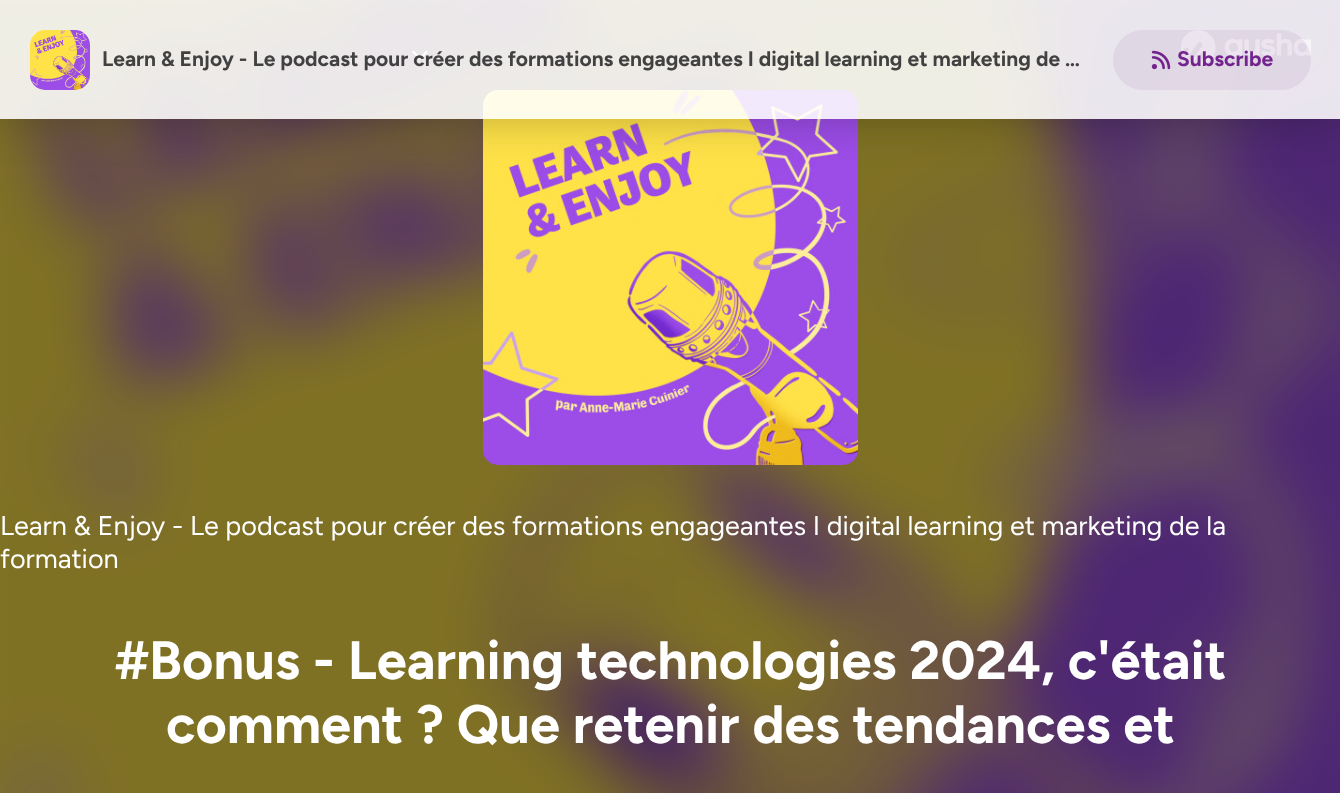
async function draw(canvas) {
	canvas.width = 1340;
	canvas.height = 793;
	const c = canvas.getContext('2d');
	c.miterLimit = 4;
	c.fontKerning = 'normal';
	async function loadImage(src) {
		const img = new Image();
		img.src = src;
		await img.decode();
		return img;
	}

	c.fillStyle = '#fff';
	c.fillRect(0, 0, 1340, 793);
	c.drawImage(await loadImage('img1.png'), 0, 0, 1340, 793);
	c.fillStyle = '#00000080';
	c.filter = 'blur(30px)';
	c.beginPath();
	c.rect(-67, -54, 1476, 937);
	c.fill();
	c.filter = 'none';
	c.drawImage(await loadImage('img2.png'), 30, 30, 15, 15);
	c.drawImage(await loadImage('img3.png'), 412, 50, 16, 10);
	c.drawImage(await loadImage('img4.png'), 1181, 30, 130, 36);
	c.drawImage(await loadImage('img7.png'), 483, 90, 375, 375);
	c.save();
	c.beginPath();
	c.moveTo(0, 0);
	c.lineTo(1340, 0);
	c.lineTo(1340, 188);
	c.lineTo(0, 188);
	c.closePath();
	c.moveTo(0, 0);
	c.lineTo(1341, 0);
	c.lineTo(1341, 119);
	c.lineTo(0, 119);
	c.closePath();
	c.clip('evenodd');
	c.fillStyle = '#00000040';
	c.filter = 'blur(22.5px)';
	c.beginPath();
	c.rect(0, 0, 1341, 119);
	c.fill();
	c.filter = 'none';
	c.restore();
	c.fillStyle = '#ffffffe0';
	c.fillRect(0, 0, 1340, 119);
	c.drawImage(await loadImage('img5.png'), 30, 30, 60, 60);
	c.font = 'bold 21px Figtree';
	c.fillStyle = '#414141';
	c.fillText('Learn & Enjoy - Le podcast pour créer des formations engageantes I digital learning et marketing de …', 102, 66);
	c.fillStyle = '#72238e14';
	c.beginPath();
	c.roundRect(1113, 30, 198, 60, 30);
	c.fill();
	c.drawImage(await loadImage('img6.png'), 1151, 50, 20, 20);
	c.fillStyle = '#72238e';
	c.fillText('Subscribe', 1177, 66);
	c.font = '27px Figtree';
	c.fillStyle = '#fff';
	c.fillText('Learn & Enjoy - Le podcast pour créer des formations engageantes I digital learning et marketing de la', 0, 535);
	c.fillText('formation', 0, 568);
	c.font = 'bold 54px Figtree';
	c.fillText('#Bonus - Learning technologies 2024, c\'était', 115, 679);
	c.fillText('comment ? Que retenir des tendances et', 166, 743);
}

draw(document.querySelector('canvas'));
